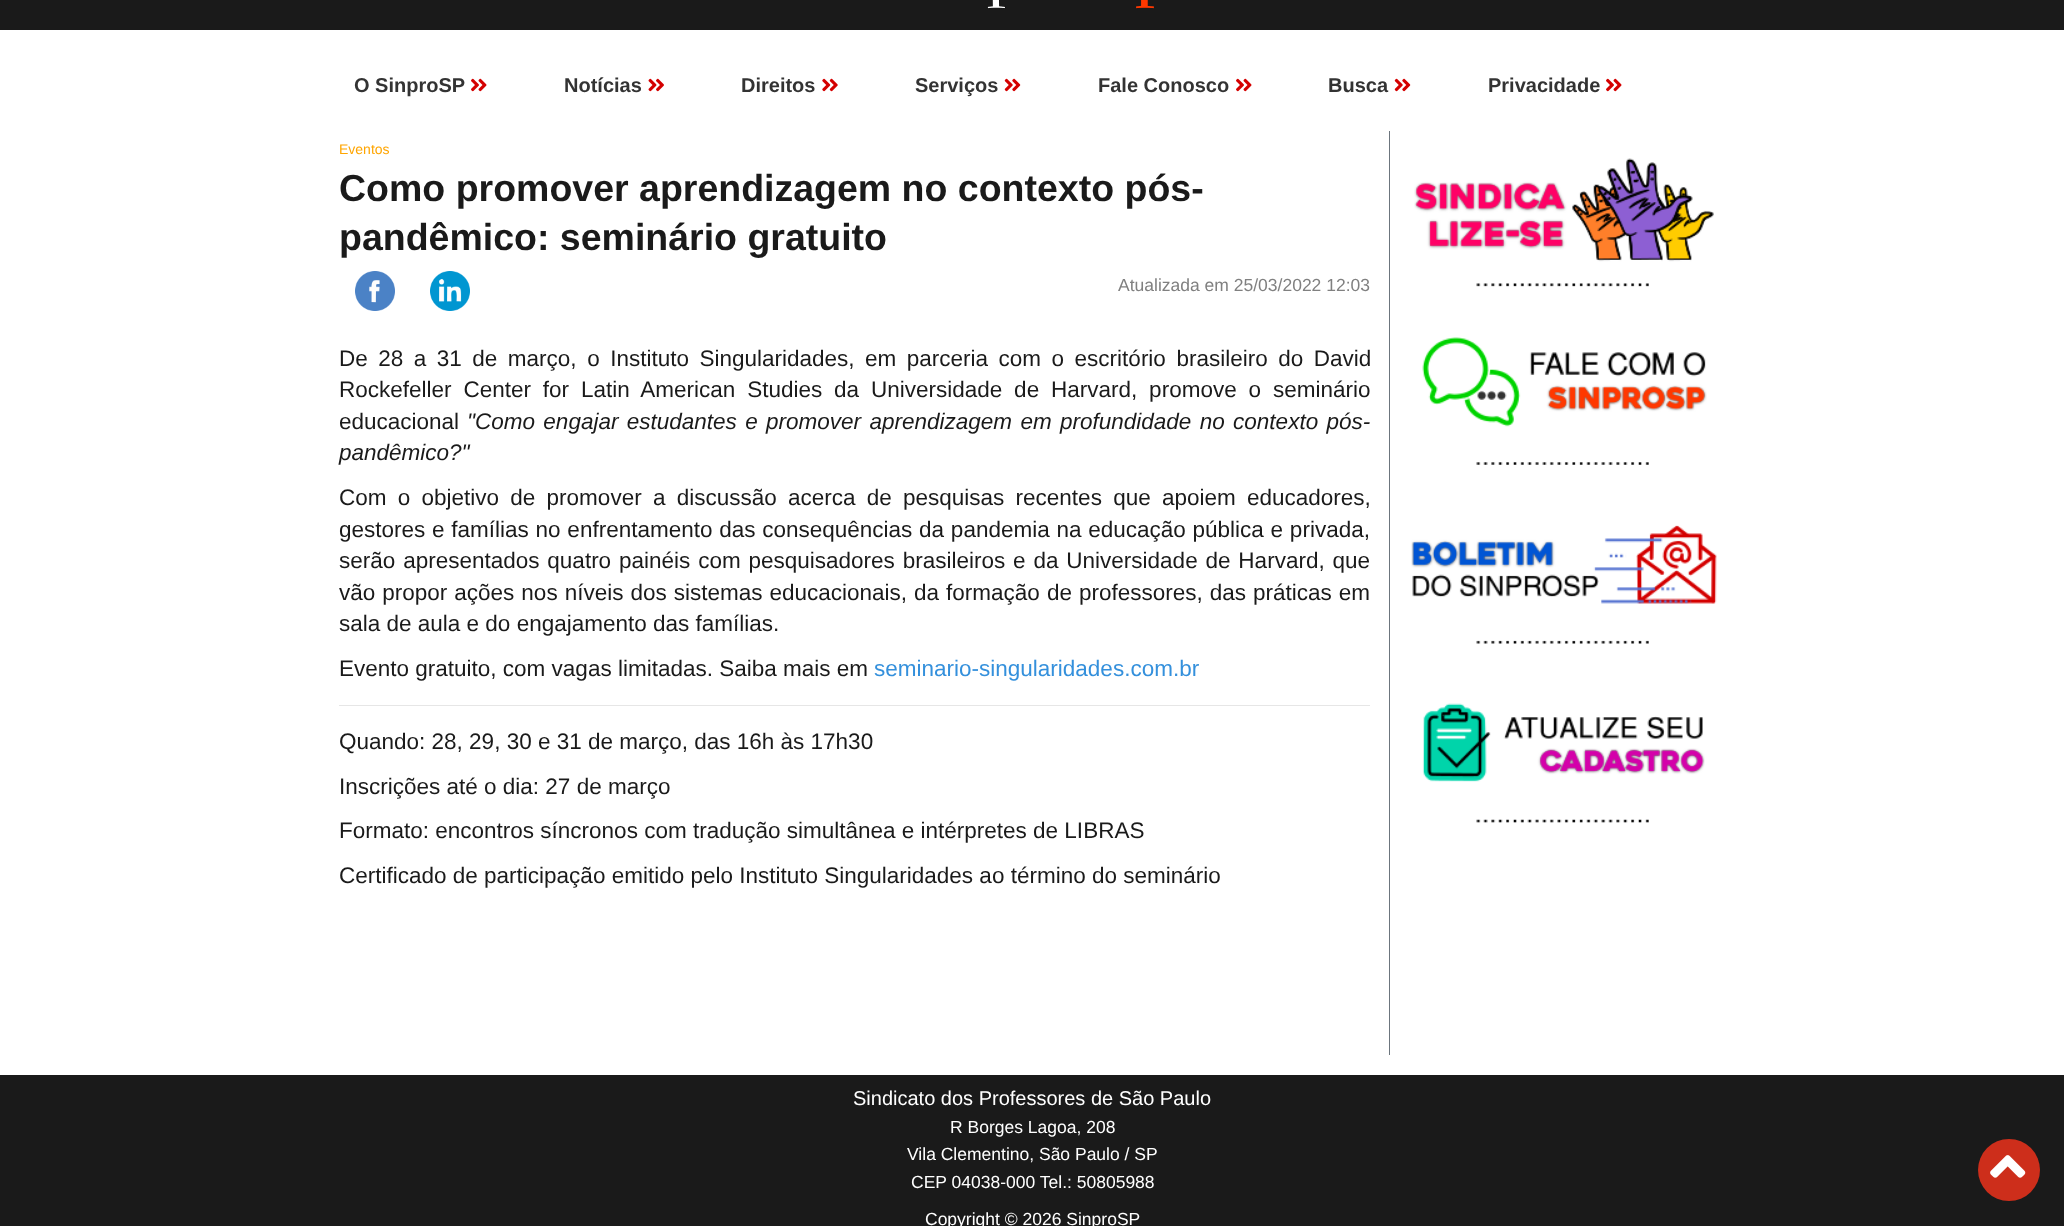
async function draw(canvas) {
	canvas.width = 2064;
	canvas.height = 1226;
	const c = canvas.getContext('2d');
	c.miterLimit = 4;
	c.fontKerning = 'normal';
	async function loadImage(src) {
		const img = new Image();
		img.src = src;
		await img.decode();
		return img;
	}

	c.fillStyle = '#fff';
	c.fillRect(0, 0, 2064, 1226);
	c.fillStyle = '#1a1a1a';
	c.fillRect(0, 0, 2064, 30);
	c.drawImage(await loadImage('img1.png'), 987, 0, 167, 9);
	c.font = 'bold 20px Liberation Sans';
	c.fillStyle = '#333';
	c.fillText('O SinproSP', 354, 92);
	c.drawImage(await loadImage('img2.png'), 471, 78, 16, 14);
	c.fillText('Notícias', 564, 92);
	c.drawImage(await loadImage('img3.png'), 648, 78, 16, 14);
	c.fillText('Direitos', 741, 92);
	c.drawImage(await loadImage('img4.png'), 822, 78, 16, 14);
	c.fillText('Serviços', 915, 92);
	c.drawImage(await loadImage('img5.png'), 1004, 78, 17, 14);
	c.fillText('Fale Conosco', 1098, 92);
	c.drawImage(await loadImage('img2.png'), 1236, 78, 16, 14);
	c.fillText('Busca', 1328, 92);
	c.drawImage(await loadImage('img5.png'), 1394, 78, 17, 14);
	c.fillText('Privacidade', 1488, 92);
	c.drawImage(await loadImage('img2.png'), 1606, 78, 16, 14);
	c.font = '14px Liberation Sans';
	c.fillStyle = '#ffa500';
	c.fillText('Eventos', 339, 154);
	c.font = 'bold 37.5px Liberation Sans';
	c.fillStyle = '#1a1a1a';
	c.fillText('Como promover aprendizagem no contexto pós-', 339, 201);
	c.fillText('pandêmico: seminário gratuito', 339, 250);
	c.drawImage(await loadImage('img6.png'), 355, 271, 40, 40);
	c.drawImage(await loadImage('img7.png'), 430, 271, 40, 40);
	c.font = '17.5px Liberation Sans';
	c.fillStyle = '#808080';
	c.fillText('Atualizada em 25/03/2022 12:03', 1118, 291);
	c.wordSpacing = '4.25px';
	c.font = '22.5px Liberation Sans';
	c.fillStyle = '#1a1a1a';
	c.fillText('De 28 a 31 de março, o Instituto Singularidades, em parceria com o escritório brasileiro do David', 339, 366);
	c.wordSpacing = '5.6px';
	c.fillText('Rockefeller Center for Latin American Studies da Universidade de Harvard, promove o seminário', 339, 397);
	c.wordSpacing = '0px';
	c.fillText('educacional', 339, 429);
	c.wordSpacing = '2.1px';
	c.font = 'italic 22.5px Liberation Sans';
	c.fillText('"Como engajar estudantes e promover aprendizagem em profundidade no contexto pós-', 467, 429);
	c.wordSpacing = '0px';
	c.fillText('pandêmico?"', 339, 460);
	c.wordSpacing = '5px';
	c.font = '22.5px Liberation Sans';
	c.fillText('Com o objetivo de promover a discussão acerca de pesquisas recentes que apoiem educadores,', 339, 505);
	c.wordSpacing = '0.5px';
	c.fillText('gestores e famílias no enfrentamento das consequências da pandemia na educação pública e privada,', 339, 537);
	c.wordSpacing = '1.6px';
	c.fillText('serão apresentados quatro painéis com pesquisadores brasileiros e da Universidade de Harvard, que', 339, 568);
	c.wordSpacing = '0.75px';
	c.fillText('vão propor ações nos níveis dos sistemas educacionais, da formação de professores, das práticas em', 339, 600);
	c.wordSpacing = '0px';
	c.fillText('sala de aula e do engajamento das famílias.', 339, 631);
	c.fillText('Evento gratuito, com vagas limitadas. Saiba mais em', 339, 676);
	c.fillStyle = '#3490dc';
	c.fillText('seminario-singularidades.com.br', 874, 676);
	c.fillStyle = '#e6e6e6';
	c.fillRect(339, 705, 1031, 1);
	c.fillStyle = '#1a1a1a';
	for (const [text, x, y] of [
		['Quando: 28, 29, 30 e 31 de março, das 16h às 17h30', 339, 749],
		['Inscrições até o dia: 27 de março', 339, 794],
		['Formato: encontros síncronos com tradução simultânea e intérpretes de LIBRAS', 339, 838],
		['Certificado de participação emitido pelo Instituto Singularidades ao término do seminário', 339, 883],
	]) {
		c.fillText(text, x, y);
	}
	c.fillStyle = '#6c757d';
	c.fillRect(1389, 131, 1, 924);
	c.drawImage(await loadImage('img8.png'), 1414, 158, 300, 129);
	c.drawImage(await loadImage('img9.png'), 1422, 337, 285, 128);
	c.drawImage(await loadImage('img10.png'), 1411, 525, 306, 119);
	c.drawImage(await loadImage('img11.png'), 1422, 703, 283, 120);
	c.fillStyle = '#1a1a1a';
	c.fillRect(0, 1075, 2064, 151);
	c.fillStyle = '#cd2e1b';
	c.beginPath();
	c.arc(2009, 1170, 31, 0, 2 * Math.PI);
	c.fill();
	c.drawImage(await loadImage('img12.png'), 1990, 1155, 36, 23);
	c.font = '20px Liberation Sans';
	c.fillStyle = '#fff';
	c.fillText('Sindicato dos Professores de São Paulo', 853, 1105);
	c.font = '17.5px Liberation Sans';
	for (const [text, x, y] of [
		['R Borges Lagoa, 208', 950, 1133],
		['Vila Clementino, São Paulo / SP', 907, 1160],
		['CEP 04038-000 Tel.: 50805988', 911, 1188],
		['Copyright © 2026 SinproSP', 925, 1225],
	]) {
		c.fillText(text, x, y);
	}
}

draw(document.querySelector('canvas'));
